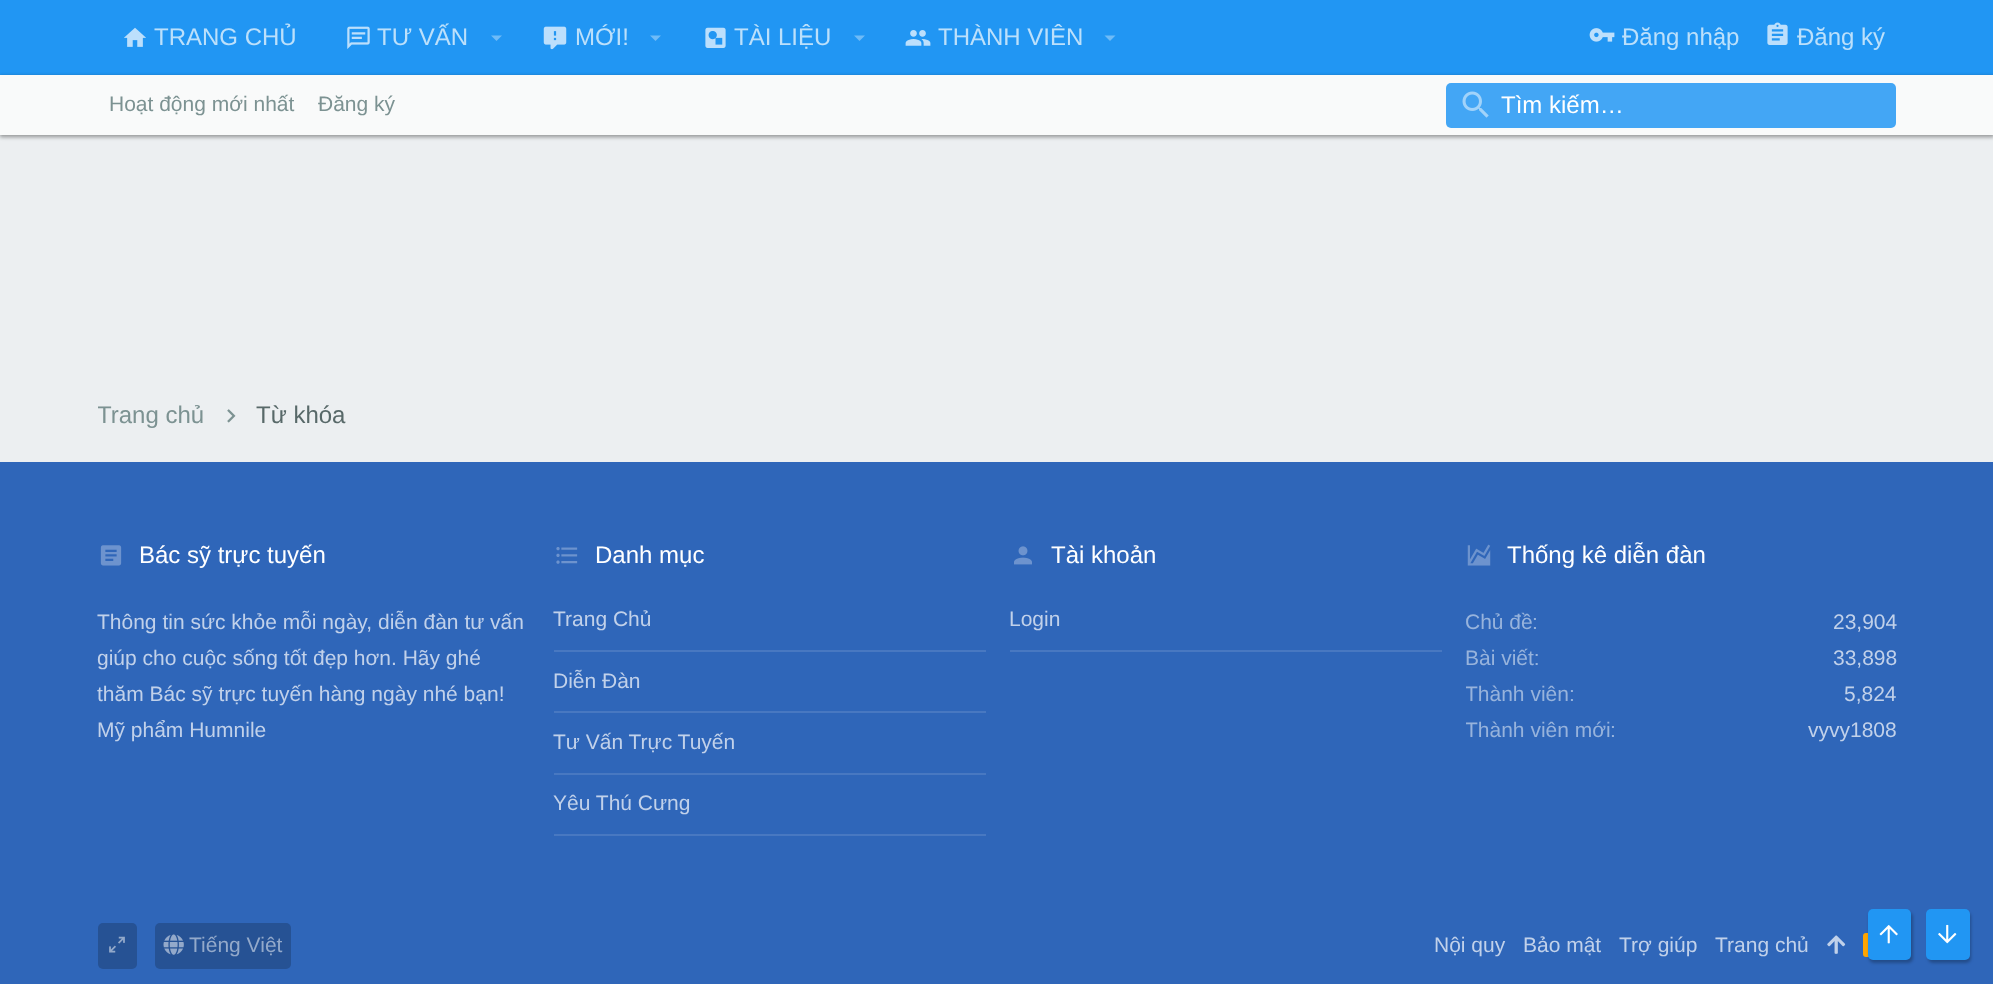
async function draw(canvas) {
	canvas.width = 1993;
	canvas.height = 984;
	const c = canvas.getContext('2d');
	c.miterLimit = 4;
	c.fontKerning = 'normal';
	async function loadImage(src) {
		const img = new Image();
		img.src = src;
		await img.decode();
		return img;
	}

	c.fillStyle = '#eceff1';
	c.fillRect(0, 0, 1993, 984);
	c.fillStyle = '#2196f3';
	c.fillRect(0, 0, 1993, 75);
	c.drawImage(await loadImage('img1.png'), 124, 27, 22, 20);
	c.font = '24px Liberation Sans';
	c.fillStyle = '#bce0fb';
	c.fillText('TRANG CHỦ', 154, 45);
	c.drawImage(await loadImage('img2.png'), 347, 26, 23, 23);
	c.fillText('TƯ VẤN', 377, 45);
	c.fillStyle = '#6fbbf7';
	c.beginPath();
	c.moveTo(491, 35.5);
	c.lineTo(496.5, 41);
	c.lineTo(502, 35.5);
	c.closePath();
	c.fill();
	c.drawImage(await loadImage('img3.png'), 543, 26, 24, 24);
	c.fillStyle = '#bce0fb';
	c.fillText('MỚI!', 575, 45);
	c.fillStyle = '#6fbbf7';
	c.beginPath();
	c.moveTo(650, 35.5);
	c.lineTo(655.5, 41);
	c.lineTo(661, 35.5);
	c.closePath();
	c.fill();
	c.drawImage(await loadImage('img4.png'), 705, 27, 21, 21);
	c.fillStyle = '#bce0fb';
	c.fillText('TÀI LIỆU', 734, 45);
	c.fillStyle = '#6fbbf7';
	c.beginPath();
	c.moveTo(854, 35.5);
	c.lineTo(859.5, 41);
	c.lineTo(865, 35.5);
	c.closePath();
	c.fill();
	c.drawImage(await loadImage('img5.png'), 905, 30, 26, 16);
	c.fillStyle = '#bce0fb';
	c.fillText('THÀNH VIÊN', 938, 45);
	c.fillStyle = '#6fbbf7';
	c.beginPath();
	c.moveTo(1104.5, 35.5);
	c.lineTo(1110, 41);
	c.lineTo(1115.5, 35.5);
	c.closePath();
	c.fill();
	c.drawImage(await loadImage('img6.png'), 1589, 28, 26, 14);
	c.fillStyle = '#bce0fb';
	c.fillText('Đăng nhập', 1622, 45);
	c.drawImage(await loadImage('img7.png'), 1767, 22, 21, 23);
	c.fillText('Đăng ký', 1797, 45);
	c.fillStyle = '#00000033';
	c.filter = 'blur(2px)';
	c.beginPath();
	c.rect(0, 77, 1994, 60);
	c.fill();
	c.filter = 'none';
	c.fillStyle = '#0000001f';
	c.filter = 'blur(1.5px)';
	c.beginPath();
	c.rect(0, 78, 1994, 60);
	c.fill();
	c.filter = 'none';
	c.fillStyle = '#00000024';
	c.filter = 'blur(1.5px)';
	c.beginPath();
	c.rect(0, 75, 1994, 60);
	c.fill();
	c.filter = 'none';
	c.fillStyle = '#f9fafa';
	c.fillRect(0, 75, 1993, 60);
	c.font = '21px Liberation Sans';
	c.fillStyle = '#7c9292';
	c.fillText('Hoạt động mới nhất', 109, 111);
	c.fillText('Đăng ký', 318, 111);
	c.fillStyle = '#43a6f5';
	c.beginPath();
	c.roundRect(1446, 83, 450, 45, 5);
	c.fill();
	c.drawImage(await loadImage('img8.png'), 1462, 91, 27, 27);
	c.font = '24px Liberation Sans';
	c.fillStyle = '#fff';
	c.fillText('Tìm kiếm…', 1501, 113);
	c.save();
	c.beginPath();
	c.rect(98, 399, 106, 33);
	c.clip();
	c.fillStyle = '#7c9292';
	c.fillText('Trang chủ', 97, 423);
	c.restore();
	c.drawImage(await loadImage('img9.png'), 227, 409, 9, 14);
	c.fillStyle = '#586969';
	c.fillText('Từ khóa', 256, 423);
	c.fillStyle = '#2f66b9';
	c.fillRect(0, 462, 1993, 522);
	c.drawImage(await loadImage('img10.png'), 100, 545, 22, 21);
	c.fillStyle = '#fff';
	c.fillText('Bác sỹ trực tuyến', 139, 563);
	c.font = '21px Liberation Sans';
	c.fillStyle = '#c1d1ea';
	for (const [text, x, y] of [
		['Thông tin sức khỏe mỗi ngày, diễn đàn tư vấn', 97, 629],
		['giúp cho cuộc sống tốt đẹp hơn. Hãy ghé', 97, 665],
		['thăm Bác sỹ trực tuyến hàng ngày nhé bạn!', 97, 701],
		['Mỹ phẩm Humnile', 97, 737],
	]) {
		c.fillText(text, x, y);
	}
	c.drawImage(await loadImage('img11.png'), 556, 547, 22, 17);
	c.font = '24px Liberation Sans';
	c.fillStyle = '#fff';
	c.fillText('Danh mục', 595, 563);
	c.fillStyle = '#4878c1';
	c.fillRect(554, 650, 432, 2);
	c.font = '21px Liberation Sans';
	c.fillStyle = '#c1d1ea';
	c.fillText('Trang Chủ', 553, 626);
	c.fillStyle = '#4878c1';
	c.fillRect(554, 711, 432, 2);
	c.fillStyle = '#c1d1ea';
	c.fillText('Diễn Đàn', 553, 688);
	c.fillStyle = '#4878c1';
	c.fillRect(554, 773, 432, 2);
	c.fillStyle = '#c1d1ea';
	c.fillText('Tư Vấn Trực Tuyến', 553, 749);
	c.fillStyle = '#4878c1';
	c.fillRect(554, 834, 432, 2);
	c.fillStyle = '#c1d1ea';
	c.fillText('Yêu Thú Cưng', 553, 810);
	c.drawImage(await loadImage('img12.png'), 1014, 546, 18, 19);
	c.font = '24px Liberation Sans';
	c.fillStyle = '#fff';
	c.fillText('Tài khoản', 1051, 563);
	c.fillStyle = '#4878c1';
	c.fillRect(1010, 650, 432, 2);
	c.font = '21px Liberation Sans';
	c.fillStyle = '#c1d1ea';
	c.fillText('Login', 1009, 626);
	c.drawImage(await loadImage('img13.png'), 1467, 544, 24, 22);
	c.font = '24px Liberation Sans';
	c.fillStyle = '#fff';
	c.fillText('Thống kê diễn đàn', 1507, 563);
	c.save();
	c.beginPath();
	c.rect(1466, 606, 432, 35);
	c.clip();
	c.font = '21px Liberation Sans';
	c.fillStyle = '#97b3dc';
	c.fillText('Chủ đề', 1465, 629);
	c.restore();
	c.font = '21px Liberation Sans';
	c.fillStyle = '#97b3dc';
	c.fillText(':', 1532, 629);
	c.fillStyle = '#c1d1ea';
	c.fillText('23,904', 1833, 629);
	c.fillStyle = '#97b3dc';
	c.fillText('Bài viết:', 1465, 665);
	c.fillStyle = '#c1d1ea';
	c.fillText('33,898', 1833, 665);
	c.save();
	c.beginPath();
	c.rect(1466, 677, 432, 36);
	c.clip();
	c.fillStyle = '#97b3dc';
	c.fillText('Thành viên', 1465, 701);
	c.restore();
	c.fillStyle = '#97b3dc';
	c.fillText(':', 1569, 701);
	c.fillStyle = '#c1d1ea';
	c.fillText('5,824', 1844, 701);
	c.save();
	c.beginPath();
	c.rect(1466, 713, 432, 36);
	c.clip();
	c.fillStyle = '#97b3dc';
	c.fillText('Thành viên mới', 1465, 737);
	c.restore();
	c.fillStyle = '#97b3dc';
	c.fillText(':', 1610, 737);
	c.fillStyle = '#c1d1ea';
	c.fillText('vyvy1808', 1808, 737);
	c.fillStyle = '#265294';
	c.beginPath();
	c.roundRect(98, 923, 39, 46, 5);
	c.fill();
	c.drawImage(await loadImage('img14.png'), 109, 936, 16, 17);
	c.beginPath();
	c.roundRect(155, 923, 136, 46, 5);
	c.fill();
	c.drawImage(await loadImage('img15.png'), 163, 934, 21, 21);
	c.fillStyle = '#93a9ca';
	c.fillText('Tiếng Việt', 189, 952);
	c.fillStyle = '#c1d1ea';
	for (const [text, x, y] of [
		['Nội quy', 1434, 952],
		['Bảo mật', 1523, 952],
		['Trợ giúp', 1619, 952],
		['Trang chủ', 1715, 952],
	]) {
		c.fillText(text, x, y);
	}
	c.drawImage(await loadImage('img16.png'), 1827, 935, 19, 19);
	c.fillStyle = '#ffa500';
	c.beginPath();
	c.roundRect(1863, 933, 26, 24, 3);
	c.fill();
	c.fillStyle = '#00000040';
	c.filter = 'blur(1.5px)';
	c.beginPath();
	c.roundRect(1869, 912, 44, 51, 5);
	c.fill();
	c.filter = 'none';
	c.fillStyle = '#2196f3';
	c.beginPath();
	c.roundRect(1868, 909, 43, 51, 5);
	c.fill();
	c.drawImage(await loadImage('img17.png'), 1879, 925, 19, 19);
	c.fillStyle = '#00000040';
	c.filter = 'blur(1.5px)';
	c.beginPath();
	c.roundRect(1928, 912, 43, 51, 5);
	c.fill();
	c.filter = 'none';
	c.fillStyle = '#2196f3';
	c.beginPath();
	c.roundRect(1926, 909, 44, 51, 5);
	c.fill();
	c.drawImage(await loadImage('img18.png'), 1938, 924, 19, 20);
}

draw(document.querySelector('canvas'));
